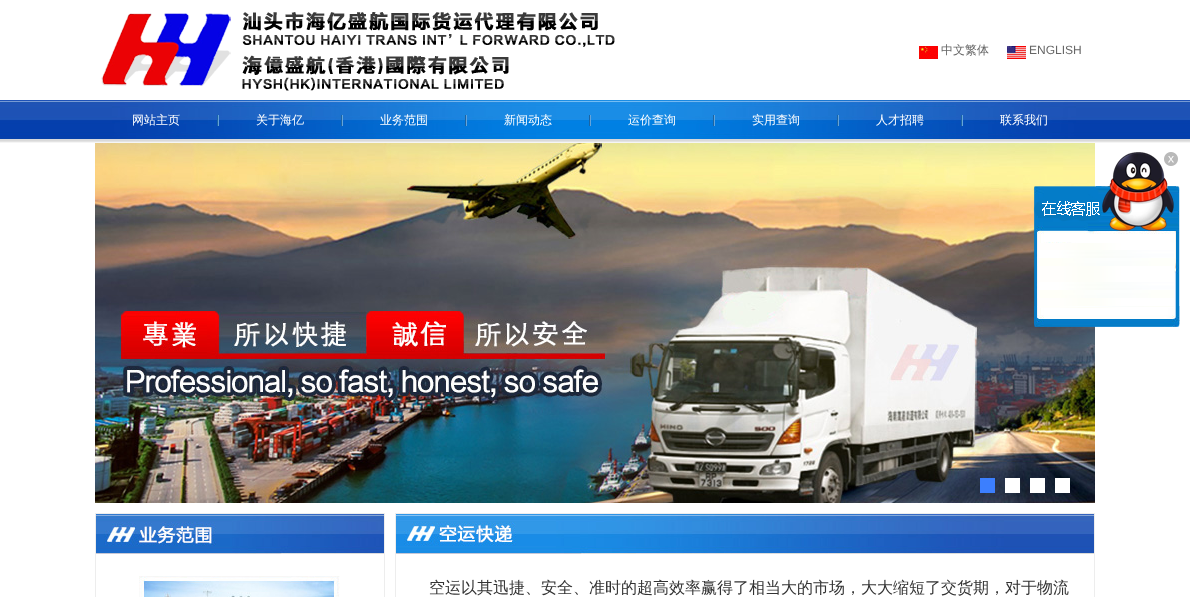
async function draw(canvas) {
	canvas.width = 1190;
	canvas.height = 597;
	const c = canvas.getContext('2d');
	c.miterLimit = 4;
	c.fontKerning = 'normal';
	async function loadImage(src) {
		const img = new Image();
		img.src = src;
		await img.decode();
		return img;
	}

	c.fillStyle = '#fff';
	c.fillRect(0, 0, 1190, 597);
	c.drawImage(await loadImage('img1.png'), 101, 12, 514, 79);
	c.drawImage(await loadImage('img2.png'), 919, 46, 19, 13);
	c.font = '500 12px WenQuanYi Zen Hei';
	c.fillStyle = '#666';
	c.fillText('中文繁体', 941, 54);
	c.drawImage(await loadImage('img3.png'), 1007, 46, 19, 13);
	c.font = '12px Liberation Sans';
	c.fillText('ENGLISH', 1029, 54);
	c.drawImage(await loadImage('img4.png'), 0, 100, 1190, 43);
	c.font = '500 12px WenQuanYi Zen Hei';
	c.fillStyle = '#fff';
	c.fillText('网站主页', 132, 124);
	c.drawImage(await loadImage('img5.png'), 217, 115, 2, 11);
	c.fillText('关于海亿', 256, 124);
	c.drawImage(await loadImage('img5.png'), 341, 115, 2, 11);
	c.fillText('业务范围', 380, 124);
	c.drawImage(await loadImage('img5.png'), 465, 115, 2, 11);
	c.fillText('新闻动态', 504, 124);
	c.drawImage(await loadImage('img5.png'), 589, 115, 2, 11);
	c.fillText('运价查询', 628, 124);
	c.drawImage(await loadImage('img5.png'), 713, 115, 2, 11);
	c.fillText('实用查询', 752, 124);
	c.drawImage(await loadImage('img5.png'), 837, 115, 2, 11);
	c.fillText('人才招聘', 876, 124);
	c.drawImage(await loadImage('img5.png'), 961, 115, 2, 11);
	c.fillText('联系我们', 1000, 124);
	c.drawImage(await loadImage('img6.png'), 95, 143, 1000, 360);
	for (const [x, y, w, h, color] of [
		[980, 478, 15, 15, '#3c7ffe'],
		[1005, 478, 15, 15, '#fff'],
		[1030, 478, 15, 15, '#fff'],
		[1055, 478, 15, 15, '#fff'],
	]) {
		c.fillStyle = color;
		c.fillRect(x, y, w, h);
	}
	c.drawImage(await loadImage('img7.png'), 1033, 152, 147, 175);
	c.strokeStyle = '#ededed';
	c.strokeRect(95.5, 513.5, 289, 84);
	c.drawImage(await loadImage('img8.png'), 96, 514, 288, 40);
	c.drawImage(await loadImage('img9.png'), 139, 576, 201, 21);
	c.strokeRect(395.5, 513.5, 699, 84);
	c.drawImage(await loadImage('img10.png'), 396, 514, 698, 40);
	c.font = '500 16px WenQuanYi Zen Hei';
	c.fillStyle = '#333';
	c.fillText('空运以其迅捷、安全、准时的超高效率赢得了相当大的市场，大大缩短了交货期，对于物流', 429, 593);
}

draw(document.querySelector('canvas'));
